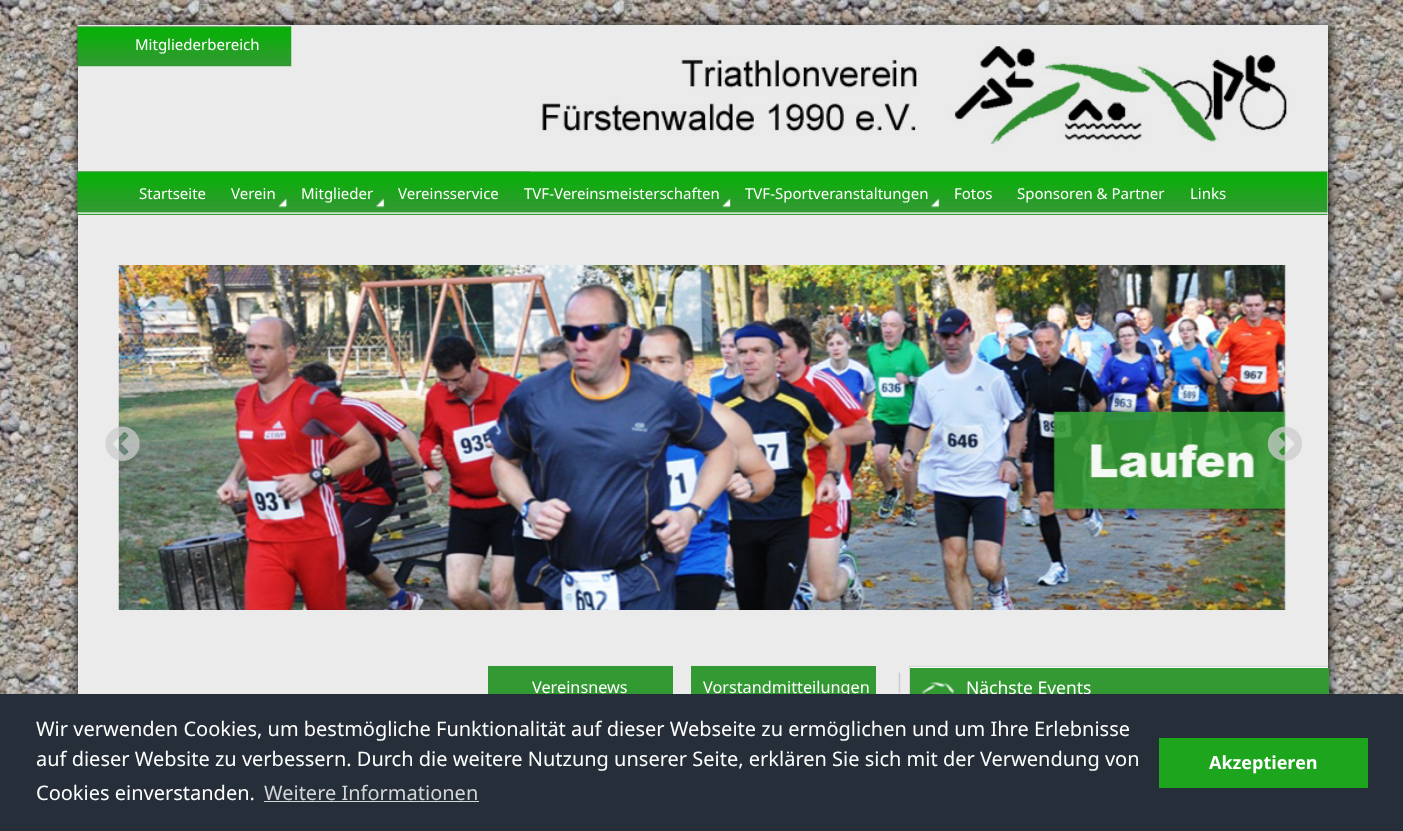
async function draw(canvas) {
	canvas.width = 1403;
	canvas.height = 831;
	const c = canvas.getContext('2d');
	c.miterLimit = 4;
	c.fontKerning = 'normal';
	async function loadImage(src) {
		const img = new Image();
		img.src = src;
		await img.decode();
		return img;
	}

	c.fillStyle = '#fff';
	c.fillRect(0, 0, 1403, 831);
	c.drawImage(await loadImage('img1.png'), 0, 0, 1403, 694);
	c.fillStyle = '#000';
	c.filter = 'blur(6px)';
	c.beginPath();
	c.rect(79, 26, 1250, 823);
	c.fill();
	c.filter = 'none';
	c.fillStyle = '#ebebeb';
	c.fillRect(78, 25, 1250, 669);
	c.drawImage(await loadImage('img2.png'), 77, 25, 215, 42);
	c.font = '15px Noto Sans';
	c.fillStyle = '#fff';
	c.fillText('Mitgliederbereich', 135, 50);
	c.drawImage(await loadImage('img4.png'), 77, 171, 1251, 44);
	c.drawImage(await loadImage('img3.png'), 530, 45, 798, 127);
	c.fillText('Startseite', 139, 199);
	c.drawImage(await loadImage('img5.png'), 278, 198, 10, 10);
	c.fillText('Verein', 231, 199);
	c.drawImage(await loadImage('img6.png'), 376, 198, 9, 10);
	c.fillText('Mitglieder', 301, 199);
	c.fillText('Vereinsservice', 398, 199);
	c.drawImage(await loadImage('img7.png'), 722, 198, 9, 10);
	c.fillText('TVF-Vereinsmeisterschaften', 524, 199);
	c.drawImage(await loadImage('img6.png'), 931, 198, 9, 10);
	for (const [text, x, y] of [
		['TVF-Sportveranstaltungen', 745, 199],
		['Fotos', 954, 199],
		['Sponsoren & Partner', 1017, 199],
		['Links', 1190, 199],
	]) {
		c.fillText(text, x, y);
	}
	c.drawImage(await loadImage('img8.png'), 118, 265, 1168, 345);
	c.drawImage(await loadImage('img9.png'), 105, 426, 35, 35);
	c.drawImage(await loadImage('img10.png'), 1267, 426, 35, 35);
	c.fillStyle = '#393';
	c.fillRect(488, 666, 185, 28);
	c.font = '16.25px Noto Sans';
	c.fillStyle = '#fff';
	c.fillText('Vereinsnews', 532, 693);
	c.fillStyle = '#393';
	c.fillRect(691, 666, 185, 28);
	c.fillStyle = '#fff';
	c.fillText('Vorstandmitteilungen', 703, 693);
	c.font = '20px Noto Sans';
	c.fillStyle = '#ccc';
	c.fillText('|', 894, 688);
	for (const [x, y, w, h, color] of [
		[910, 667, 418, 1, '#fff'],
		[909, 666, 419, 1, '#d4d4d4'],
		[909, 666, 1, 28, '#d4d4d4'],
		[910, 668, 419, 26, '#393'],
	]) {
		c.fillStyle = color;
		c.fillRect(x, y, w, h);
	}
	c.drawImage(await loadImage('img11.png'), 922, 681, 32, 13);
	c.font = '17.5px Noto Sans';
	c.fillStyle = '#fff';
	c.fillText('Nächste Events', 966, 694);
	c.fillStyle = '#252e39';
	c.fillRect(0, 694, 1403, 137);
	c.font = '20px Noto Sans';
	c.fillStyle = '#fff';
	for (const [text, x, y] of [
		['Wir verwenden Cookies, um bestmögliche Funktionalität auf dieser Webseite zu ermöglichen und um Ihre Erlebnisse', 36, 736],
		['auf dieser Website zu verbessern. Durch die weitere Nutzung unserer Seite, erklären Sie sich mit der Verwendung von', 36, 766],
		['Cookies einverstanden.', 36, 800],
	]) {
		c.fillText(text, x, y);
	}
	c.fillStyle = '#d3d5d7';
	c.fillText('Weitere Informationen', 264, 800);
	c.fillRect(264, 801, 215, 1);
	c.fillStyle = '#1da51d';
	c.fillRect(1159, 738, 209, 50);
	c.font = 'bold 18px Noto Sans';
	c.fillStyle = '#fff';
	c.fillText('Akzeptieren', 1209, 769);
}

draw(document.querySelector('canvas'));
